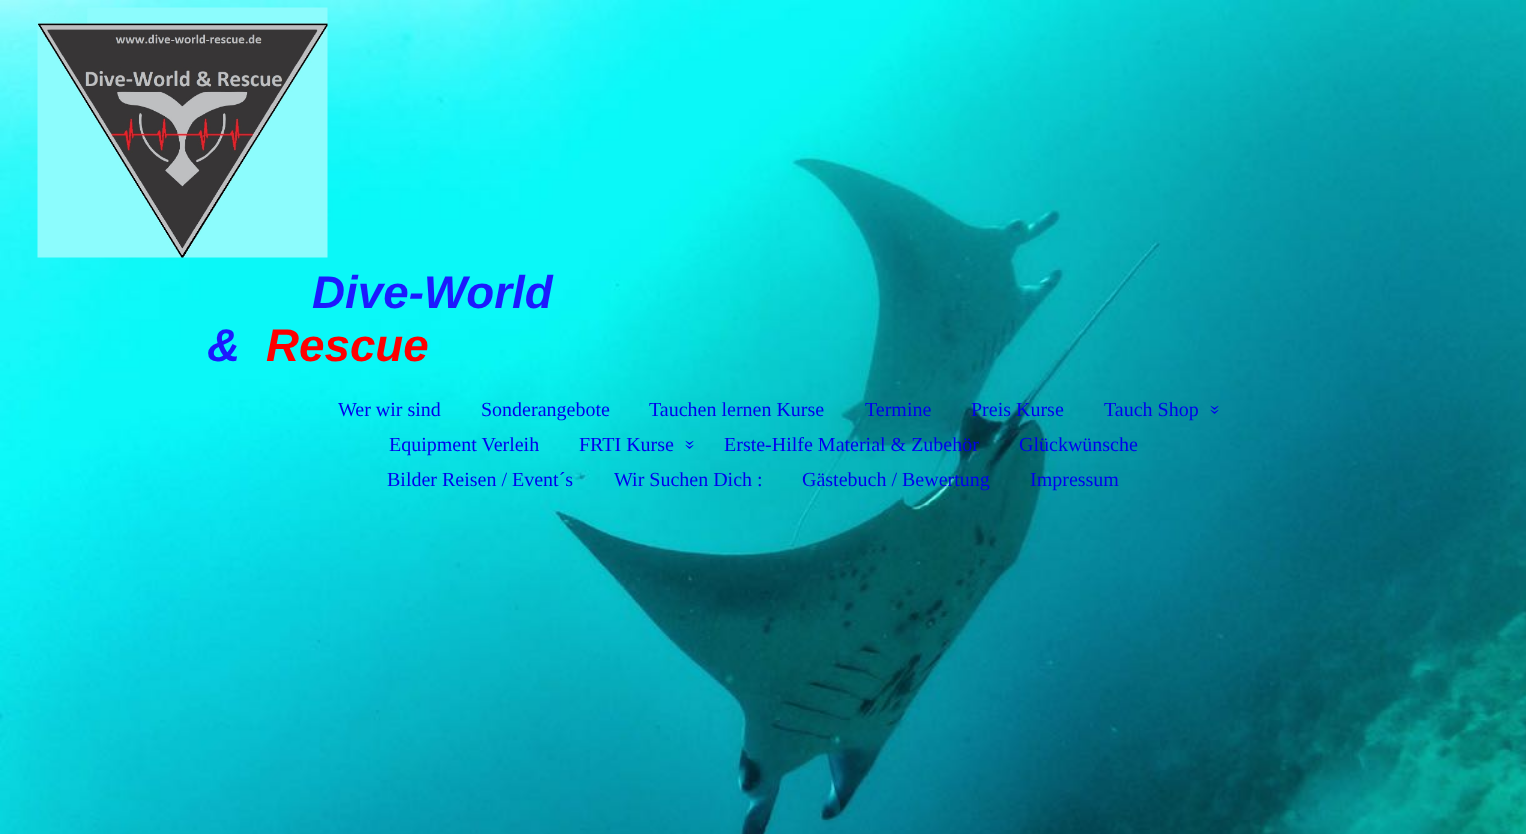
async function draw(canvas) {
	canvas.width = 1526;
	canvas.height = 834;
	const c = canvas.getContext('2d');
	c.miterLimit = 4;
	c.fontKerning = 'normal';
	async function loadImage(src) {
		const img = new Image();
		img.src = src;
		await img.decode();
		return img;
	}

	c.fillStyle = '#fff';
	c.fillRect(0, 0, 1526, 834);
	c.drawImage(await loadImage('img1.png'), 0, 0, 1526, 834);
	c.drawImage(await loadImage('img2.png'), 37, 7, 291, 251);
	c.font = 'italic bold 45.75px Liberation Sans';
	c.fillStyle = '#1c19fe';
	c.fillText('Dive-World', 312, 308);
	c.fillText('&', 207, 361);
	c.fillStyle = '#f00';
	c.fillText('Rescue', 266, 361);
	c.font = '20px Liberation Serif';
	c.fillStyle = '#00e';
	for (const [text, x, y] of [
		['Wer wir sind', 338, 416],
		['Sonderangebote', 481, 416],
		['Tauchen lernen Kurse', 649, 416],
		['Termine', 865, 416],
		['Preis Kurse', 971, 416],
		['Tauch Shop', 1104, 416],
	]) {
		c.fillText(text, x, y);
	}
	c.save();
	c.translate(1210, 405);
	c.rotate(90 * Math.PI / 180);
	c.fillText('»', 0, 0);
	c.restore();
	c.fillText('Equipment Verleih', 389, 451);
	c.fillText('FRTI Kurse', 579, 451);
	c.save();
	c.translate(685, 440);
	c.rotate(90 * Math.PI / 180);
	c.fillText('»', 0, 0);
	c.restore();
	for (const [text, x, y] of [
		['Erste-Hilfe Material & Zubehör', 724, 451],
		['Glückwünsche', 1019, 451],
		['Bilder Reisen / Event´s', 387, 486],
		['Wir Suchen Dich :', 614, 486],
		['Gästebuch / Bewertung', 802, 486],
		['Impressum', 1030, 486],
	]) {
		c.fillText(text, x, y);
	}
}

draw(document.querySelector('canvas'));
